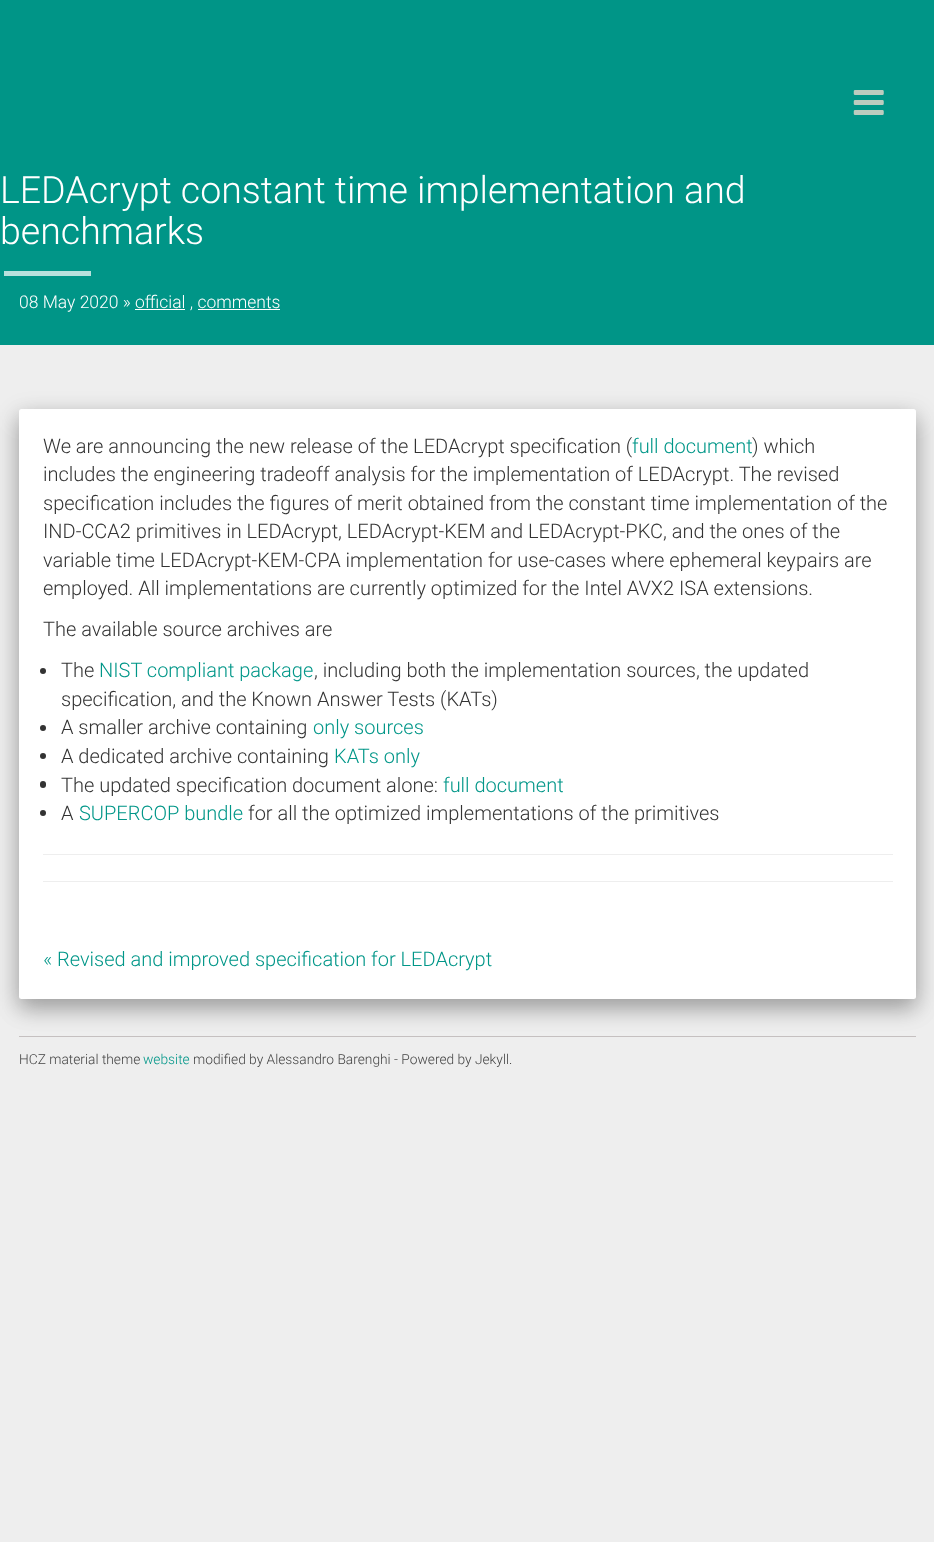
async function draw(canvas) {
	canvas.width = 934;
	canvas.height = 1542;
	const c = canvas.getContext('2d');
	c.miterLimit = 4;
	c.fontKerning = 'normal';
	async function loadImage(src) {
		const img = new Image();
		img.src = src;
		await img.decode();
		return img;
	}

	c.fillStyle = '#eee';
	c.fillRect(0, 0, 934, 1542);
	c.fillStyle = '#009587';
	c.fillRect(0, 0, 934, 345);
	c.drawImage(await loadImage('img1.png'), 853, 90, 31, 25);
	c.font = '300 37.5px Roboto';
	c.fillStyle = '#fff';
	c.fillText('LEDAcrypt constant time implementation and', 0, 203);
	c.fillText('benchmarks', 0, 244);
	c.fillStyle = '#b8e1dd';
	c.fillRect(4, 271, 87, 5);
	c.font = '300 17.5px Roboto';
	c.fillStyle = '#fff';
	c.fillText('08 May 2020 » official , comments', 19, 308);
	c.fillRect(135, 309, 50, 1);
	c.fillRect(198, 309, 82, 1);
	c.fillStyle = '#00000030';
	c.filter = 'blur(12.5px)';
	c.beginPath();
	c.roundRect(19, 416, 897, 590, 2.5);
	c.fill();
	c.filter = 'none';
	c.fillStyle = '#00000033';
	c.filter = 'blur(10.5px)';
	c.beginPath();
	c.roundRect(19, 419, 897, 590, 2.5);
	c.fill();
	c.filter = 'none';
	c.fillStyle = '#fff';
	c.beginPath();
	c.roundRect(19, 409, 897, 590, 2.5);
	c.fill();
	c.font = '300 20px Roboto';
	c.fillStyle = '#333';
	c.fillText('We are announcing the new release of the LEDAcrypt specification (', 43, 453);
	c.fillStyle = '#009688';
	c.fillText('full document', 632, 453);
	c.fillStyle = '#333';
	for (const [text, x, y] of [
		[') which', 752, 453],
		['includes the engineering tradeoff analysis for the implementation of LEDAcrypt. The revised', 43, 481],
		['specification includes the figures of merit obtained from the constant time implementation of the', 43, 510],
		['IND-CCA2 primitives in LEDAcrypt, LEDAcrypt-KEM and LEDAcrypt-PKC, and the ones of the', 43, 538],
		['variable time LEDAcrypt-KEM-CPA implementation for use-cases where ephemeral keypairs are', 43, 567],
		['employed. All implementations are currently optimized for the Intel AVX2 ISA extensions.', 43, 595],
		['The available source archives are', 43, 636],
	]) {
		c.fillText(text, x, y);
	}
	c.beginPath();
	c.arc(43, 671, 3, 0, 2 * Math.PI);
	c.fill();
	c.fillText('The', 61, 677);
	c.fillStyle = '#009688';
	c.fillText('NIST compliant package', 99, 677);
	c.fillStyle = '#333';
	c.fillText(', including both the implementation sources, the updated', 314, 677);
	c.fillText('specification, and the Known Answer Tests (KATs)', 61, 706);
	c.beginPath();
	c.arc(43, 728, 3, 0, 2 * Math.PI);
	c.fill();
	c.fillText('A smaller archive containing', 61, 734);
	c.fillStyle = '#009688';
	c.fillText('only sources', 313, 734);
	c.fillStyle = '#333';
	c.beginPath();
	c.arc(43, 756, 3, 0, 2 * Math.PI);
	c.fill();
	c.fillText('A dedicated archive containing', 61, 763);
	c.fillStyle = '#009688';
	c.fillText('KATs only', 334, 763);
	c.fillStyle = '#333';
	c.beginPath();
	c.roundRect(40, 781, 6, 7, 3);
	c.fill();
	c.fillText('The updated specification document alone:', 61, 792);
	c.fillStyle = '#009688';
	c.fillText('full document', 443, 792);
	c.fillStyle = '#333';
	c.beginPath();
	c.arc(43, 813, 3, 0, 2 * Math.PI);
	c.fill();
	c.fillText('A', 61, 820);
	c.fillStyle = '#009688';
	c.fillText('SUPERCOP bundle', 79, 820);
	c.fillStyle = '#333';
	c.fillText('for all the optimized implementations of the primitives', 248, 820);
	c.fillStyle = '#eee';
	c.fillRect(43, 854, 850, 1);
	c.fillRect(43, 881, 850, 1);
	c.fillStyle = '#009688';
	c.fillText('« Revised and improved specification for LEDAcrypt', 43, 966);
	c.fillStyle = '#c5c0c0';
	c.fillRect(19, 1036, 897, 1);
	c.font = '300 13.75px Roboto';
	c.fillStyle = '#444';
	c.fillText('HCZ material theme', 19, 1064);
	c.fillStyle = '#009688';
	c.fillText('website', 143, 1064);
	c.fillStyle = '#444';
	c.fillText('modified by Alessandro Barenghi - Powered by Jekyll.', 193, 1064);
}

draw(document.querySelector('canvas'));
